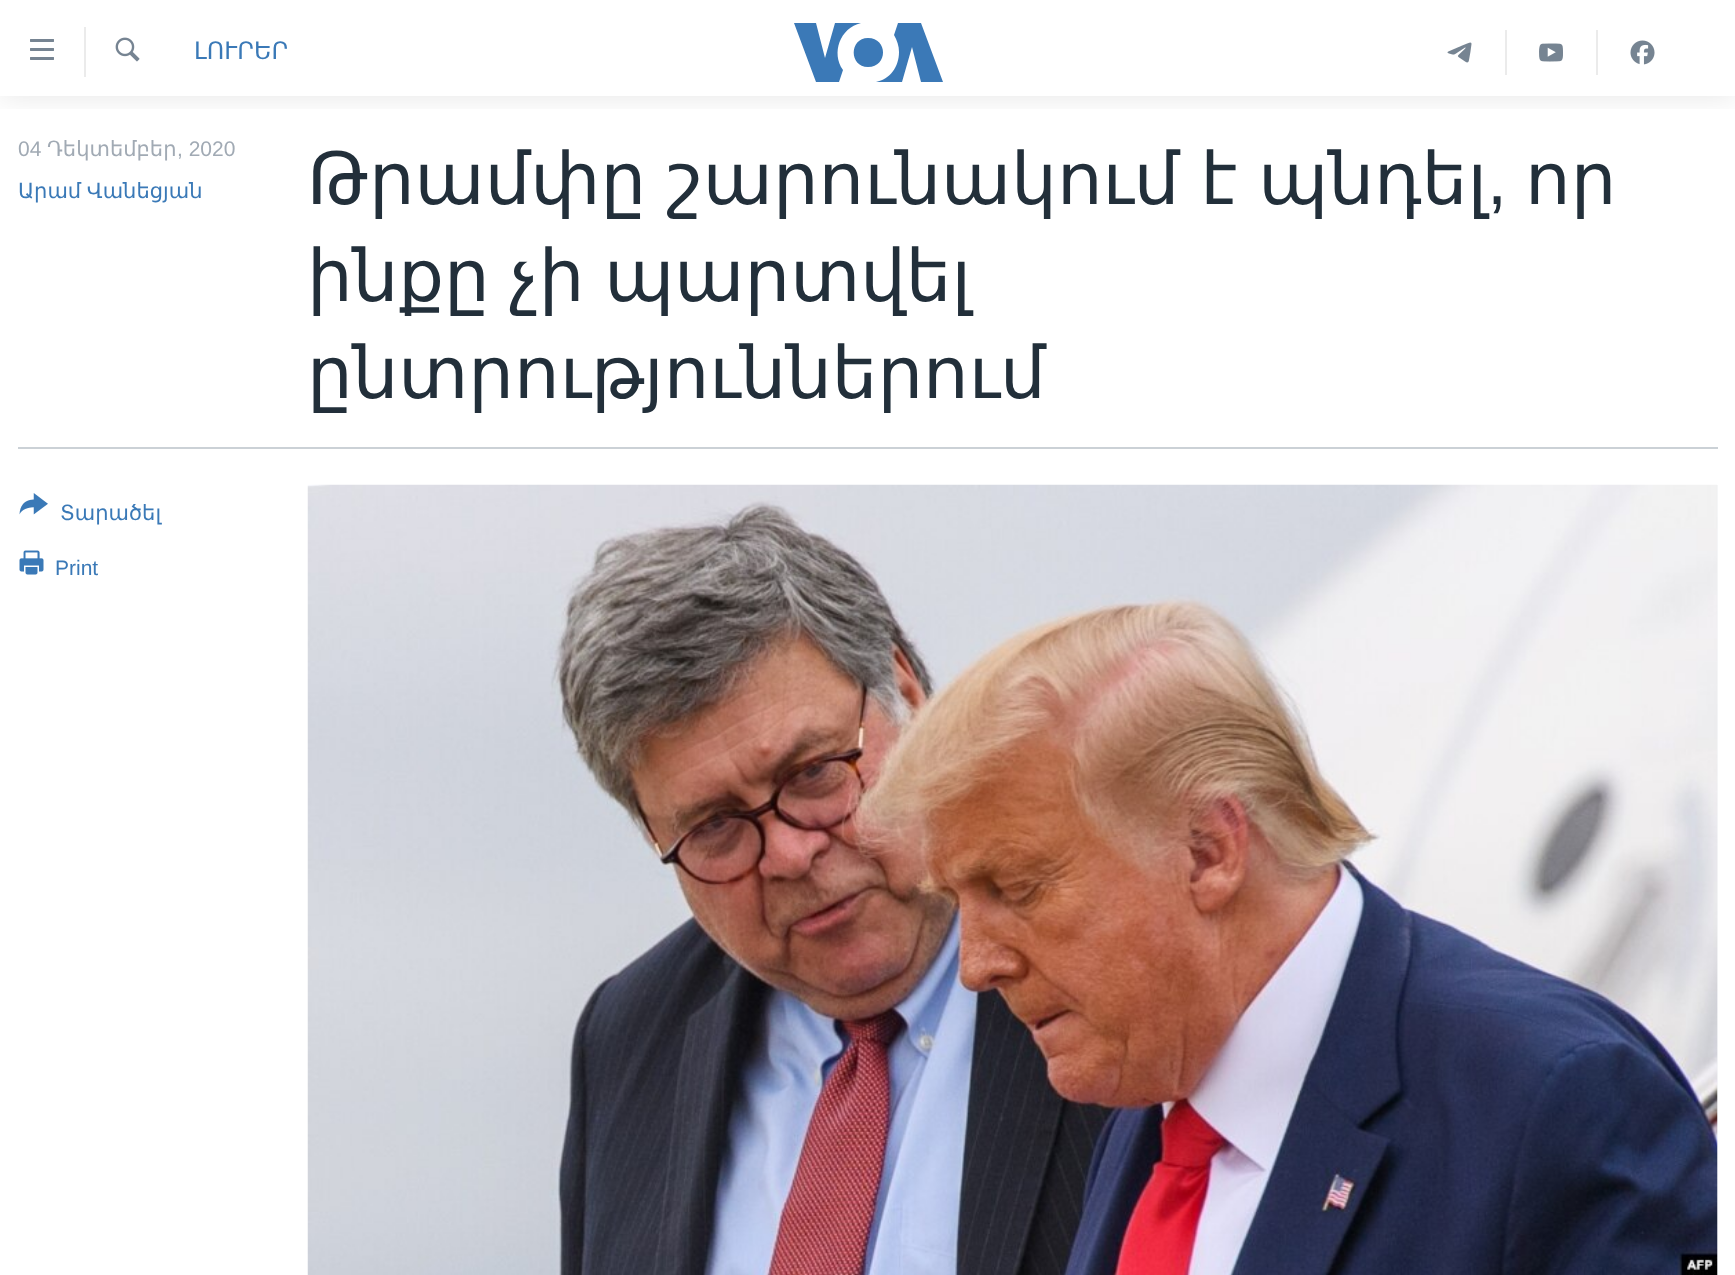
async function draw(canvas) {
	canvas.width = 1735;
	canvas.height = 1275;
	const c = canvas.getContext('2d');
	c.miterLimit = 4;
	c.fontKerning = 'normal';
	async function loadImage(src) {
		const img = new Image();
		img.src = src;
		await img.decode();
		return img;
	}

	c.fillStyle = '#fff';
	c.fillRect(0, 0, 1735, 1275);
	c.save();
	c.beginPath();
	c.rect(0, 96, 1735, 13);
	c.clip();
	c.fillStyle = '#0000001a';
	c.filter = 'blur(15px)';
	c.beginPath();
	c.rect(0, 0, 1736, 96);
	c.fill();
	c.filter = 'none';
	c.restore();
	c.drawImage(await loadImage('img1.png'), 30, 39, 24, 21);
	c.fillStyle = '#ebebeb';
	c.fillRect(84, 27, 2, 50);
	c.drawImage(await loadImage('img2.png'), 115, 37, 25, 25);
	c.font = '24px DejaVu Sans';
	c.fillStyle = '#3a79b7';
	c.fillText('ԼՈՒՐԵՐ', 194, 59);
	c.fillStyle = '#3b79b7';
	c.beginPath();
	c.moveTo(843, 70);
	c.lineTo(839, 82);
	c.lineTo(816, 82);
	c.lineTo(794, 23);
	c.lineTo(816, 23);
	c.lineTo(825, 58);
	c.lineTo(835, 23);
	c.lineTo(861, 23);
	c.bezierCurveTo(840, 28, 831, 53, 843, 70);
	c.closePath();
	c.moveTo(868, 38);
	c.bezierCurveTo(849, 38, 849, 67, 868, 67);
	c.bezierCurveTo(888, 67, 888, 38, 868, 38);
	c.closePath();
	c.moveTo(899, 52);
	c.bezierCurveTo(899, 67, 890, 79, 876, 82);
	c.lineTo(902, 82);
	c.lineTo(912, 47);
	c.lineTo(921, 82);
	c.lineTo(943, 82);
	c.lineTo(921, 23);
	c.lineTo(898, 23);
	c.lineTo(894, 35);
	c.bezierCurveTo(897, 40, 899, 46, 899, 52);
	c.closePath();
	c.fill();
	c.fillStyle = '#ebebeb';
	c.fillRect(1505, 30, 2, 45);
	c.drawImage(await loadImage('img3.png'), 1447, 42, 25, 21);
	c.fillRect(1596, 30, 2, 45);
	c.drawImage(await loadImage('img4.png'), 1539, 43, 24, 19);
	c.drawImage(await loadImage('img5.png'), 1630, 40, 25, 25);
	c.font = '21px Liberation Sans';
	c.fillStyle = '#a1aab4';
	c.fillText('04', 18, 156);
	c.font = '21px DejaVu Sans';
	c.fillText('Դեկտեմբեր', 47, 156);
	c.font = '21px Liberation Sans';
	c.fillText(', 2020', 177, 156);
	c.wordSpacing = '-1px';
	c.font = '21px DejaVu Sans';
	c.fillStyle = '#3a79b7';
	c.fillText('Արամ Վանեցյան', 18, 198);
	c.wordSpacing = '-2px';
	c.font = '72px DejaVu Sans';
	c.fillStyle = '#222f3a';
	c.fillText('Թրամփը շարունակում է պնդել', 307, 204);
	c.wordSpacing = '0px';
	c.font = '72px Liberation Sans';
	c.fillText(',', 1487, 204);
	c.font = '72px DejaVu Sans';
	c.fillText('որ', 1525, 204);
	c.wordSpacing = '-3px';
	c.fillText('ինքը չի պարտվել', 307, 301);
	c.wordSpacing = '0px';
	c.fillText('ընտրություններում', 307, 398);
	c.fillStyle = '#cbd1d6';
	c.fillRect(18, 447, 1700, 2);
	c.drawImage(await loadImage('img6.png'), 19, 493, 29, 22);
	c.font = '21px DejaVu Sans';
	c.fillStyle = '#3a79b7';
	c.fillText('Տարածել', 60, 520);
	c.drawImage(await loadImage('img7.png'), 19, 550, 25, 25);
	c.font = '21px Liberation Sans';
	c.fillText('Print', 55, 575);
	c.fillStyle = '#f6f7f8';
	c.fillRect(1717, 485, 1, 790);
	c.drawImage(await loadImage('img8.png'), 307, 484, 1411, 791);
}

draw(document.querySelector('canvas'));
